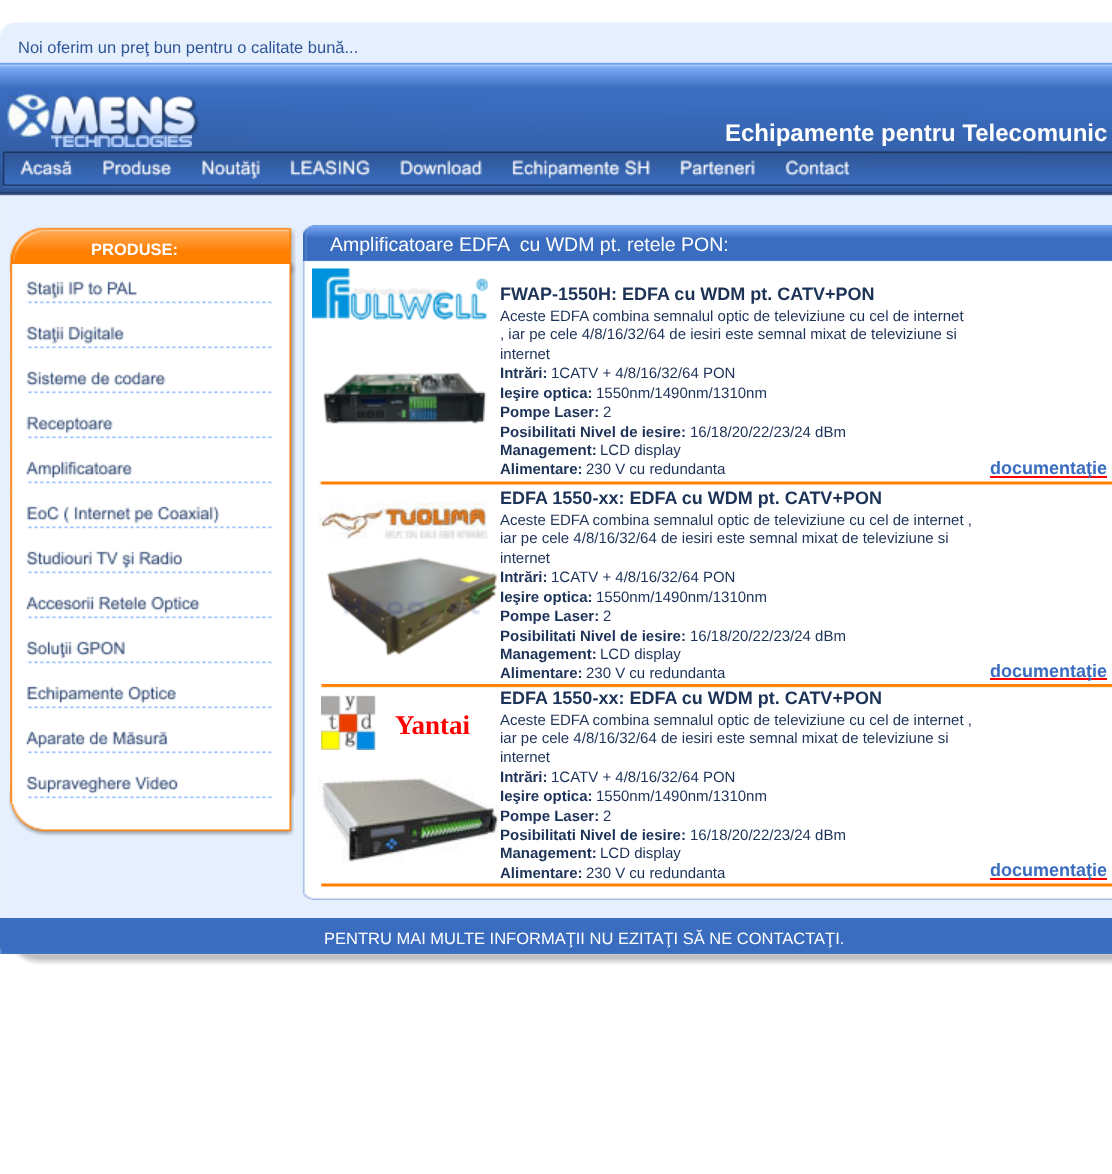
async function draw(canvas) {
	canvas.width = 1112;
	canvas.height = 1174;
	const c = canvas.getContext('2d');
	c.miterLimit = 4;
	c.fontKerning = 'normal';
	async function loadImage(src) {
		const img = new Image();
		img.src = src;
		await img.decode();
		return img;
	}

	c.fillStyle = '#fff';
	c.fillRect(0, 0, 1112, 1174);
	c.drawImage(await loadImage('img1.png'), 0, 22, 1112, 943);
	c.drawImage(await loadImage('img2.png'), 0, 22, 1112, 179);
	c.font = '16.5px Liberation Sans';
	c.fillStyle = '#2f5696';
	c.fillText('Noi oferim un preţ bun pentru o calitate bună...', 18, 53);
	c.drawImage(await loadImage('img3.png'), 7, 94, 44, 43);
	c.drawImage(await loadImage('img4.png'), 51, 94, 149, 46);
	c.font = 'bold 24px Liberation Sans';
	c.fillStyle = '#fff';
	c.fillText('Echipamente pentru Telecomunic', 725, 141);
	c.drawImage(await loadImage('img5.png'), 51, 135, 141, 12);
	c.drawImage(await loadImage('img6.png'), 4, 153, 86, 31);
	c.drawImage(await loadImage('img7.png'), 90, 153, 99, 23);
	c.drawImage(await loadImage('img8.png'), 189, 153, 89, 26);
	c.drawImage(await loadImage('img9.png'), 277, 153, 110, 23);
	c.drawImage(await loadImage('img10.png'), 387, 153, 112, 23);
	c.drawImage(await loadImage('img11.png'), 499, 153, 169, 26);
	c.drawImage(await loadImage('img12.png'), 667, 153, 105, 23);
	c.drawImage(await loadImage('img13.png'), 772, 153, 95, 23);
	c.drawImage(await loadImage('img15.png'), 305, 225, 807, 36);
	c.drawImage(await loadImage('img14.png'), 303, 225, 15, 36);
	c.drawImage(await loadImage('img18.png'), 10, 262, 286, 536);
	c.drawImage(await loadImage('img16.png'), 9, 227, 287, 47);
	c.drawImage(await loadImage('img17.png'), 306, 225, 806, 13);
	c.font = 'bold 16.5px Liberation Sans';
	c.fillText('PRODUSE:', 91, 255);
	c.font = '19.5px Liberation Sans';
	c.fillText('Amplificatoare EDFA  cu WDM pt. retele PON:', 330, 251);
	c.drawImage(await loadImage('img19.png'), 302, 259, 810, 641);
	c.drawImage(await loadImage('img20.png'), 10, 264, 281, 46);
	c.drawImage(await loadImage('img21.png'), 312, 268, 176, 52);
	c.font = 'bold 18px Liberation Sans';
	c.fillStyle = '#1c3257';
	c.fillText('FWAP-1550H: EDFA cu WDM pt. CATV+PON', 500, 300);
	c.font = '15px Liberation Sans';
	for (const [text, x, y] of [
		['Aceste EDFA combina semnalul optic de televiziune cu cel de internet', 500, 321],
		[', iar pe cele 4/8/16/32/64 de iesiri este semnal mixat de televiziune si', 500, 339],
		['internet', 500, 359],
	]) {
		c.fillText(text, x, y);
	}
	c.font = 'bold 15px Liberation Sans';
	c.fillText('Intrări:', 500, 378);
	c.font = '15px Liberation Sans';
	c.fillText('1CATV + 4/8/16/32/64 PON', 551, 378);
	c.font = 'bold 15px Liberation Sans';
	c.fillText('Ieşire optica:', 500, 398);
	c.font = '15px Liberation Sans';
	c.fillText('1550nm/1490nm/1310nm', 596, 398);
	c.font = 'bold 15px Liberation Sans';
	c.fillText('Pompe Laser:', 500, 417);
	c.font = '15px Liberation Sans';
	c.fillText('2', 603, 417);
	c.font = 'bold 15px Liberation Sans';
	c.fillText('Posibilitati Nivel de iesire:', 500, 437);
	c.font = '15px Liberation Sans';
	c.fillText('16/18/20/22/23/24 dBm', 690, 437);
	c.font = 'bold 15px Liberation Sans';
	c.fillText('Management:', 500, 455);
	c.font = '15px Liberation Sans';
	c.fillText('LCD display', 600, 455);
	c.font = 'bold 15px Liberation Sans';
	c.fillText('Alimentare:', 500, 474);
	c.font = '15px Liberation Sans';
	c.fillText('230 V cu redundanta', 586, 474);
	c.drawImage(await loadImage('img22.png'), 10, 309, 281, 46);
	c.drawImage(await loadImage('img23.png'), 10, 354, 281, 46);
	c.drawImage(await loadImage('img24.png'), 323, 372, 164, 52);
	c.drawImage(await loadImage('img25.png'), 10, 399, 281, 46);
	c.drawImage(await loadImage('img26.png'), 10, 444, 281, 45);
	c.fillStyle = '#f00';
	c.fillRect(990, 476, 117, 2);
	c.font = 'bold 18px Liberation Sans';
	c.fillStyle = '#3a6cbf';
	c.fillText('documentaţie', 990, 474);
	c.drawImage(await loadImage('img27.png'), 319, 481, 793, 4);
	c.drawImage(await loadImage('img28.png'), 10, 489, 281, 45);
	c.drawImage(await loadImage('img29.png'), 318, 502, 170, 37);
	c.fillStyle = '#1c3257';
	c.fillText('EDFA 1550-xx: EDFA cu WDM pt. CATV+PON', 500, 504);
	c.font = '15px Liberation Sans';
	for (const [text, x, y] of [
		['Aceste EDFA combina semnalul optic de televiziune cu cel de internet ,', 500, 525],
		['iar pe cele 4/8/16/32/64 de iesiri este semnal mixat de televiziune si', 500, 543],
		['internet', 500, 563],
	]) {
		c.fillText(text, x, y);
	}
	c.font = 'bold 15px Liberation Sans';
	c.fillText('Intrări:', 500, 582);
	c.font = '15px Liberation Sans';
	c.fillText('1CATV + 4/8/16/32/64 PON', 551, 582);
	c.font = 'bold 15px Liberation Sans';
	c.fillText('Ieşire optica:', 500, 602);
	c.font = '15px Liberation Sans';
	c.fillText('1550nm/1490nm/1310nm', 596, 602);
	c.font = 'bold 15px Liberation Sans';
	c.fillText('Pompe Laser:', 500, 621);
	c.font = '15px Liberation Sans';
	c.fillText('2', 603, 621);
	c.font = 'bold 15px Liberation Sans';
	c.fillText('Posibilitati Nivel de iesire:', 500, 641);
	c.font = '15px Liberation Sans';
	c.fillText('16/18/20/22/23/24 dBm', 690, 641);
	c.font = 'bold 15px Liberation Sans';
	c.fillText('Management:', 500, 659);
	c.font = '15px Liberation Sans';
	c.fillText('LCD display', 600, 659);
	c.font = 'bold 15px Liberation Sans';
	c.fillText('Alimentare:', 500, 678);
	c.font = '15px Liberation Sans';
	c.fillText('230 V cu redundanta', 586, 678);
	c.drawImage(await loadImage('img30.png'), 10, 534, 281, 45);
	c.drawImage(await loadImage('img31.png'), 327, 557, 171, 99);
	c.drawImage(await loadImage('img32.png'), 10, 579, 281, 45);
	c.drawImage(await loadImage('img33.png'), 10, 624, 281, 45);
	c.drawImage(await loadImage('img34.png'), 10, 669, 281, 45);
	c.fillStyle = '#f00';
	c.fillRect(990, 678, 117, 2);
	c.font = 'bold 18px Liberation Sans';
	c.fillStyle = '#3a6cbf';
	c.fillText('documentaţie', 990, 677);
	c.drawImage(await loadImage('img35.png'), 321, 684, 791, 4);
	c.drawImage(await loadImage('img36.png'), 10, 714, 281, 45);
	c.drawImage(await loadImage('img37.png'), 321, 695, 55, 55);
	c.font = 'bold 27px Liberation Serif';
	c.fillStyle = '#f00';
	c.fillText('Yantai', 395, 734);
	c.font = 'bold 18px Liberation Sans';
	c.fillStyle = '#1c3257';
	c.fillText('EDFA 1550-xx: EDFA cu WDM pt. CATV+PON', 500, 704);
	c.font = '15px Liberation Sans';
	for (const [text, x, y] of [
		['Aceste EDFA combina semnalul optic de televiziune cu cel de internet ,', 500, 725],
		['iar pe cele 4/8/16/32/64 de iesiri este semnal mixat de televiziune si', 500, 743],
		['internet', 500, 762],
	]) {
		c.fillText(text, x, y);
	}
	c.font = 'bold 15px Liberation Sans';
	c.fillText('Intrări:', 500, 782);
	c.font = '15px Liberation Sans';
	c.fillText('1CATV + 4/8/16/32/64 PON', 551, 782);
	c.font = 'bold 15px Liberation Sans';
	c.fillText('Ieşire optica:', 500, 801);
	c.font = '15px Liberation Sans';
	c.fillText('1550nm/1490nm/1310nm', 596, 801);
	c.font = 'bold 15px Liberation Sans';
	c.fillText('Pompe Laser:', 500, 821);
	c.font = '15px Liberation Sans';
	c.fillText('2', 603, 821);
	c.font = 'bold 15px Liberation Sans';
	c.fillText('Posibilitati Nivel de iesire:', 500, 840);
	c.font = '15px Liberation Sans';
	c.fillText('16/18/20/22/23/24 dBm', 690, 840);
	c.font = 'bold 15px Liberation Sans';
	c.fillText('Management:', 500, 858);
	c.font = '15px Liberation Sans';
	c.fillText('LCD display', 600, 858);
	c.font = 'bold 15px Liberation Sans';
	c.fillText('Alimentare:', 500, 878);
	c.font = '15px Liberation Sans';
	c.fillText('230 V cu redundanta', 586, 878);
	c.drawImage(await loadImage('img40.png'), 9, 790, 285, 46);
	c.drawImage(await loadImage('img38.png'), 10, 759, 281, 45);
	c.drawImage(await loadImage('img39.png'), 318, 778, 181, 85);
	c.fillStyle = '#f00';
	c.fillRect(990, 878, 117, 2);
	c.font = 'bold 18px Liberation Sans';
	c.fillStyle = '#3a6cbf';
	c.fillText('documentaţie', 990, 876);
	c.drawImage(await loadImage('img41.png'), 321, 883, 791, 4);
	c.drawImage(await loadImage('img42.png'), 0, 918, 1112, 36);
	c.font = '16.5px Liberation Sans';
	c.fillStyle = '#fff';
	c.fillText('PENTRU MAI MULTE INFORMAŢII NU EZITAŢI SĂ NE CONTACTAŢI.', 324, 944);
}

draw(document.querySelector('canvas'));
